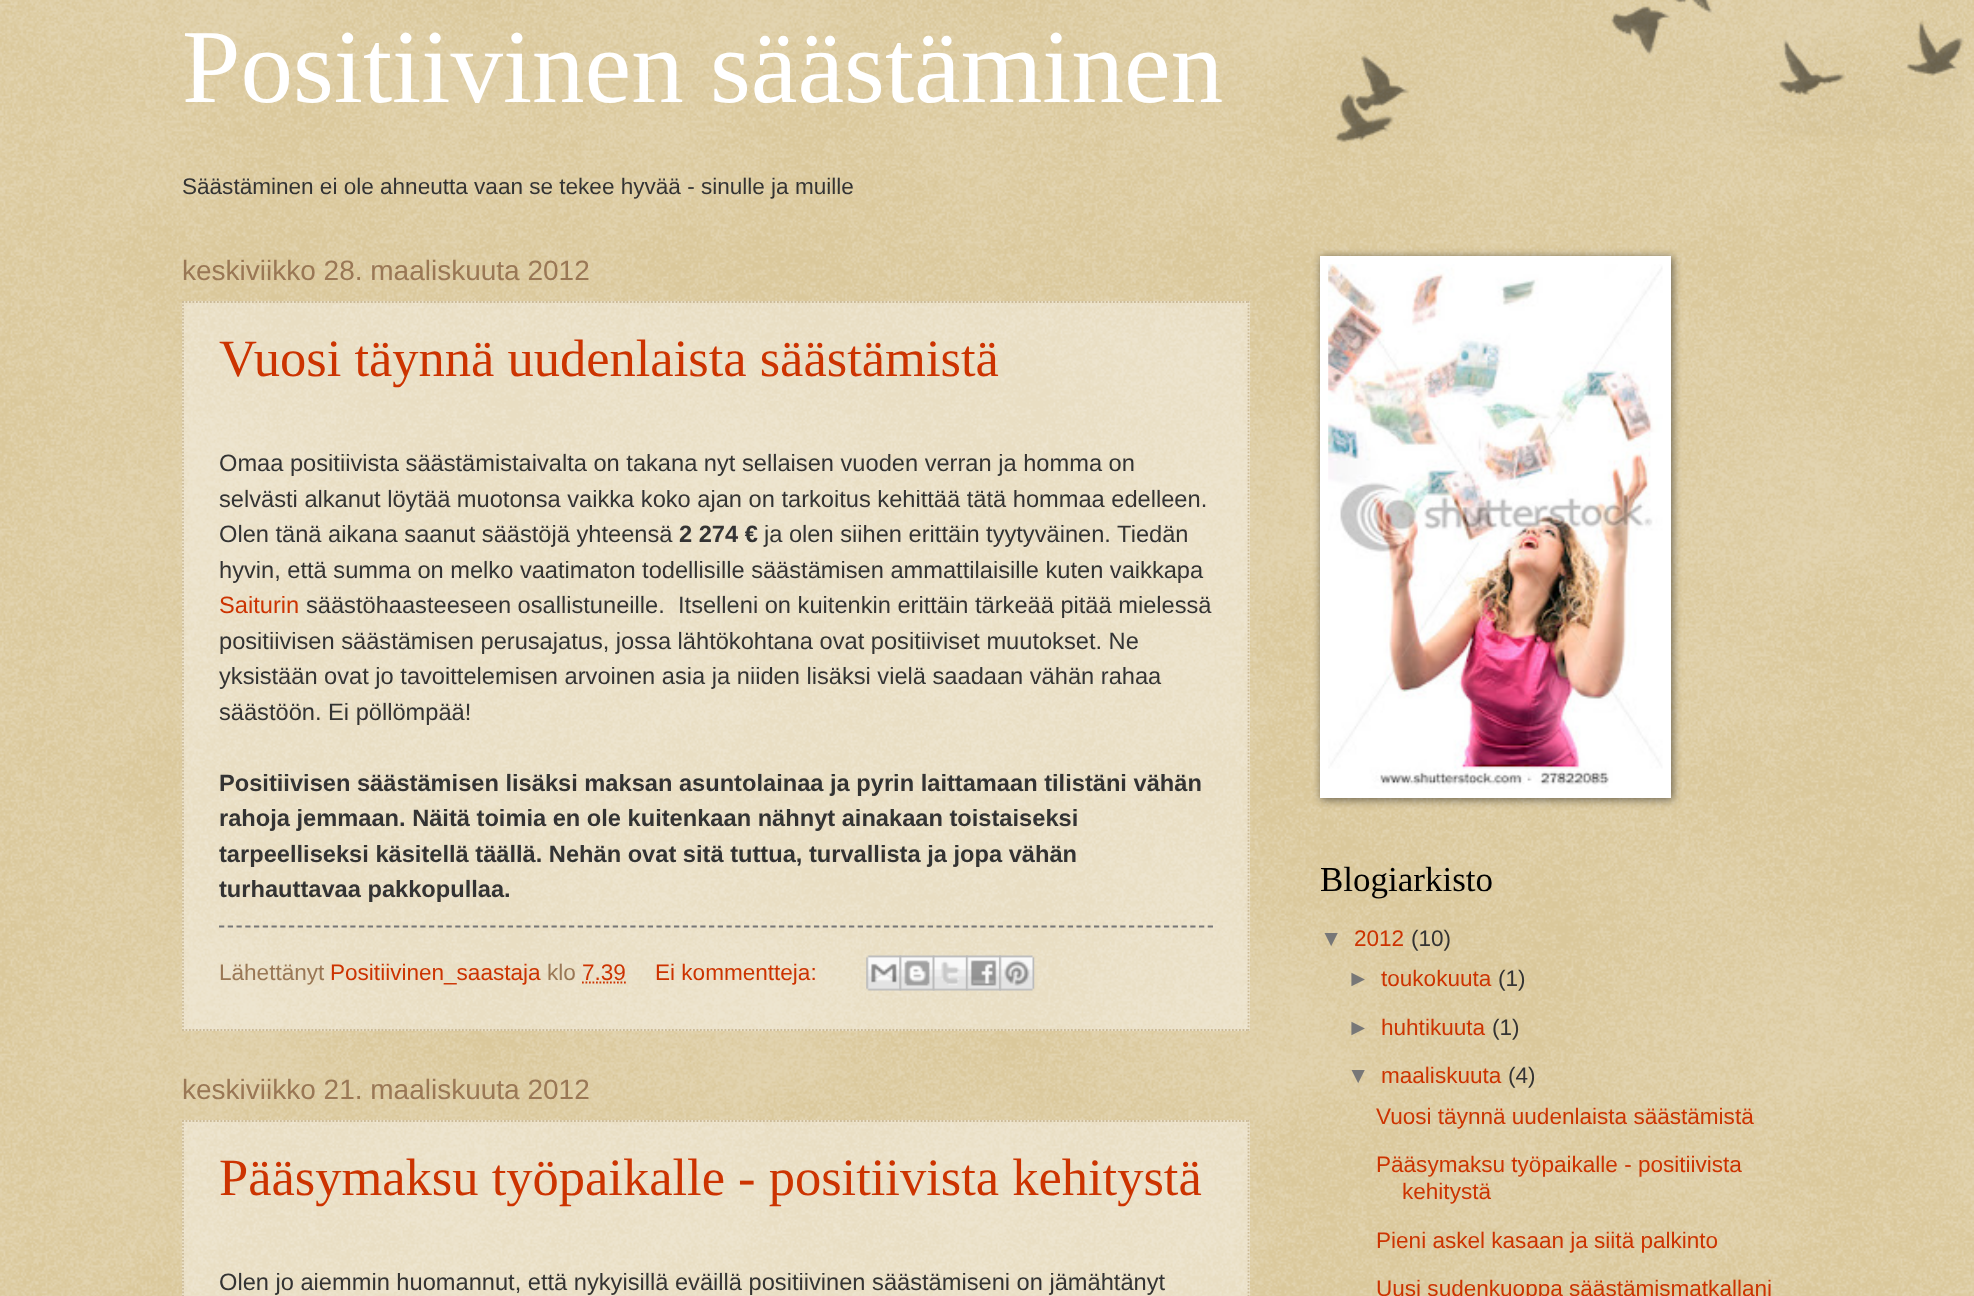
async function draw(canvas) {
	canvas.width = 1974;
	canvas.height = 1296;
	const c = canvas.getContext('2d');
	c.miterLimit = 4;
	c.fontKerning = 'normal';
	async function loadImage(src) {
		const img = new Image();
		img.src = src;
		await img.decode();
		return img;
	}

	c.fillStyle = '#c0a154';
	c.fillRect(0, 0, 1974, 1296);
	c.drawImage(await loadImage('img1.png'), 0, 0, 1974, 1296);
	c.drawImage(await loadImage('img2.png'), 1335, 0, 629, 143);
	c.font = '105px Liberation Serif';
	c.fillStyle = '#fff';
	c.fillText('Positiivinen säästäminen', 182, 102);
	c.font = '22.55px Liberation Sans';
	c.fillStyle = '#333';
	c.fillText('Säästäminen ei ole ahneutta vaan se tekee hyvää - sinulle ja muille', 182, 194);
	c.font = '28px Liberation Sans';
	c.fillStyle = '#975';
	c.fillText('keskiviikko 28. maaliskuuta 2012', 182, 280);
	c.fillStyle = '#ffffff66';
	c.fillRect(182, 301, 1068, 730);
	c.beginPath();
	c.moveTo(182, 302);
	c.lineTo(1249.5, 302);
	c.strokeStyle = '#cb9';
	c.lineWidth = 1.8;
	c.setLineDash([1.75, 1.75]);
	c.stroke();
	c.beginPath();
	c.moveTo(1248.5, 301);
	c.lineTo(1248.5, 1031);
	c.stroke();
	c.beginPath();
	c.moveTo(182, 1030);
	c.lineTo(1249.5, 1030);
	c.stroke();
	c.beginPath();
	c.moveTo(183, 301);
	c.lineTo(183, 1031);
	c.stroke();
	c.font = '52.5px Liberation Serif';
	c.fillStyle = '#c30';
	c.fillText('Vuosi täynnä uudenlaista säästämistä', 219, 376);
	c.font = '23.65px Liberation Sans';
	c.fillStyle = '#333';
	for (const [text, x, y] of [
		['Omaa positiivista säästämistaivalta on takana nyt sellaisen vuoden verran ja homma on', 219, 471],
		['selvästi alkanut löytää muotonsa vaikka koko ajan on tarkoitus kehittää tätä hommaa edelleen.', 219, 507],
		['Olen tänä aikana saanut säästöjä yhteensä', 219, 542],
	]) {
		c.fillText(text, x, y);
	}
	c.font = 'bold 23.65px Liberation Sans';
	c.fillText('2 274 €', 679, 542);
	c.font = '23.65px Liberation Sans';
	c.fillText('ja olen siihen erittäin tyytyväinen. Tiedän', 764, 542);
	c.fillText('hyvin, että summa on melko vaatimaton todellisille säästämisen ammattilaisille kuten vaikkapa', 219, 578);
	c.fillStyle = '#c30';
	c.fillText('Saiturin', 219, 613);
	c.fillStyle = '#333';
	for (const [text, x, y] of [
		['säästöhaasteeseen osallistuneille.', 306, 613],
		['Itselleni on kuitenkin erittäin tärkeää pitää mielessä', 678, 613],
		['positiivisen säästämisen perusajatus, jossa lähtökohtana ovat positiiviset muutokset. Ne', 219, 649],
		['yksistään ovat jo tavoittelemisen arvoinen asia ja niiden lisäksi vielä saadaan vähän rahaa', 219, 684],
		['säästöön. Ei pöllömpää!', 219, 720],
	]) {
		c.fillText(text, x, y);
	}
	c.font = 'bold 23.65px Liberation Sans';
	for (const [text, x, y] of [
		['Positiivisen säästämisen lisäksi maksan asuntolainaa ja pyrin laittamaan tilistäni vähän', 219, 791],
		['rahoja jemmaan. Näitä toimia en ole kuitenkaan nähnyt ainakaan toistaiseksi', 219, 826],
		['tarpeelliseksi käsitellä täällä. Nehän ovat sitä tuttua, turvallista ja jopa vähän', 219, 862],
		['turhauttavaa pakkopullaa.', 219, 897],
	]) {
		c.fillText(text, x, y);
	}
	c.beginPath();
	c.moveTo(219, 926.5);
	c.lineTo(1213, 926.5);
	c.strokeStyle = '#777';
	c.setLineDash([5.25, 3.5]);
	c.stroke();
	c.font = '22.55px Liberation Sans';
	c.fillStyle = '#975';
	c.fillText('Lähettänyt', 219, 980);
	c.fillStyle = '#c30';
	c.fillText('Positiivinen_saastaja', 330, 980);
	c.fillStyle = '#975';
	c.fillText('klo', 547, 980);
	c.fillStyle = '#c30';
	c.fillText('7.39', 582, 980);
	c.beginPath();
	c.moveTo(582, 982.5);
	c.lineTo(626, 982.5);
	c.strokeStyle = '#c30';
	c.setLineDash([1.75, 1.75]);
	c.stroke();
	c.fillText('Ei kommentteja:', 655, 980);
	c.drawImage(await loadImage('img3.png'), 866, 955, 36, 36);
	c.drawImage(await loadImage('img4.png'), 899, 955, 36, 36);
	c.drawImage(await loadImage('img5.png'), 932, 955, 36, 36);
	c.drawImage(await loadImage('img6.png'), 966, 955, 35, 36);
	c.drawImage(await loadImage('img7.png'), 999, 955, 36, 36);
	c.font = '28px Liberation Sans';
	c.fillStyle = '#975';
	c.fillText('keskiviikko 21. maaliskuuta 2012', 182, 1099);
	c.fillStyle = '#ffffff66';
	c.fillRect(182, 1120, 1068, 176);
	c.beginPath();
	c.moveTo(182, 1121);
	c.lineTo(1249.5, 1121);
	c.strokeStyle = '#cb9';
	c.stroke();
	c.beginPath();
	c.moveTo(1248.5, 1120);
	c.lineTo(1248.5, 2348.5);
	c.stroke();
	c.beginPath();
	c.moveTo(183, 1120);
	c.lineTo(183, 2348.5);
	c.stroke();
	c.font = '52.5px Liberation Serif';
	c.fillStyle = '#c30';
	c.fillText('Pääsymaksu työpaikalle - positiivista kehitystä', 219, 1195);
	c.font = '23.65px Liberation Sans';
	c.fillStyle = '#333';
	c.fillText('Olen jo aiemmin huomannut, että nykyisillä eväillä positiivinen säästämiseni on jämähtänyt', 219, 1290);
	c.fillStyle = '#00000080';
	c.filter = 'blur(4.5px)';
	c.beginPath();
	c.rect(1321, 257, 352, 543);
	c.fill();
	c.filter = 'none';
	c.fillStyle = '#fff';
	c.fillRect(1320, 256, 351, 542);
	c.drawImage(await loadImage('img8.png'), 1328, 264, 335, 525);
	c.font = '35px Liberation Serif';
	c.fillStyle = '#000';
	c.fillText('Blogiarkisto', 1320, 891);
	c.font = '22.55px Liberation Sans';
	c.fillStyle = '#777';
	c.fillText('▼', 1320, 946);
	c.fillStyle = '#c30';
	c.fillText('2012', 1354, 946);
	c.fillStyle = '#333';
	c.fillText('(10)', 1411, 946);
	c.fillStyle = '#777';
	c.fillText('►', 1347, 986);
	c.fillStyle = '#c30';
	c.fillText('toukokuuta', 1381, 986);
	c.fillStyle = '#333';
	c.fillText('(1)', 1498, 986);
	c.fillStyle = '#777';
	c.fillText('►', 1347, 1035);
	c.fillStyle = '#c30';
	c.fillText('huhtikuuta', 1381, 1035);
	c.fillStyle = '#333';
	c.fillText('(1)', 1492, 1035);
	c.fillStyle = '#777';
	c.fillText('▼', 1347, 1083);
	c.fillStyle = '#c30';
	c.fillText('maaliskuuta', 1381, 1083);
	c.fillStyle = '#333';
	c.fillText('(4)', 1508, 1083);
	c.fillStyle = '#c30';
	for (const [text, x, y] of [
		['Vuosi täynnä uudenlaista säästämistä', 1376, 1124],
		['Pääsymaksu työpaikalle - positiivista', 1376, 1172],
		['kehitystä', 1402, 1199],
		['Pieni askel kasaan ja siitä palkinto', 1376, 1248],
		['Uusi sudenkuoppa säästämismatkallani', 1376, 1296],
	]) {
		c.fillText(text, x, y);
	}
}

draw(document.querySelector('canvas'));
